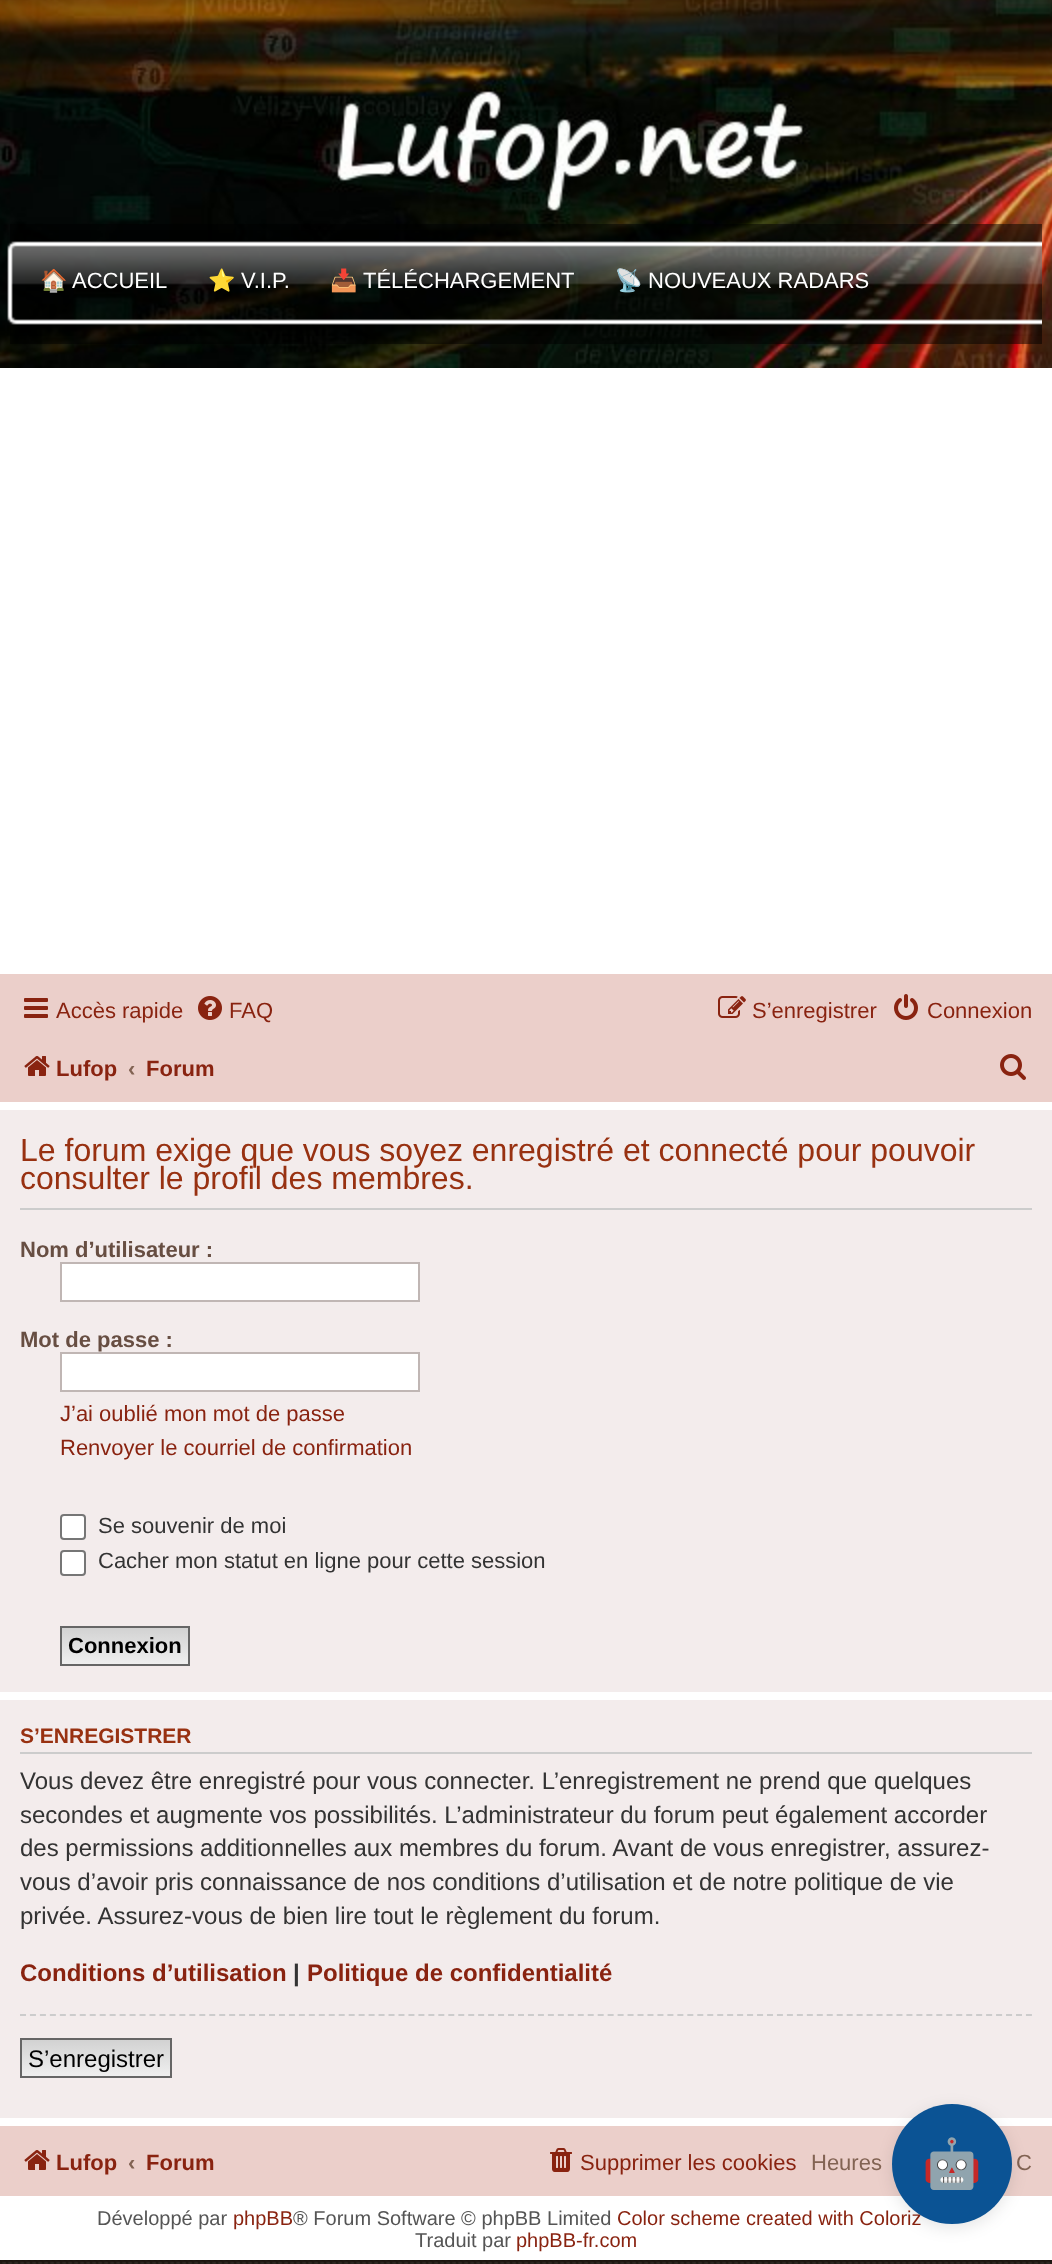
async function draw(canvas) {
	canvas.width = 1052;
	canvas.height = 2264;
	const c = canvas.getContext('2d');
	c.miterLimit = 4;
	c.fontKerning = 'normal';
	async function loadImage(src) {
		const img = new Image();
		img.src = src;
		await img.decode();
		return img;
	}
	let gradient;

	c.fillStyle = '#fff';
	c.fillRect(0, 0, 1052, 2264);
	c.drawImage(await loadImage('img1.png'), 0, 2260, 1052, 4);
	c.drawImage(await loadImage('img2.png'), 0, 0, 1052, 368);
	c.fillStyle = '#00000080';
	c.fillRect(10, 224, 1032, 120);
	c.drawImage(await loadImage('img3.png'), 7, 230, 1035, 106);
	c.font = '22px Noto Color Emoji';
	c.fillStyle = '#fff';
	c.fillText('🏠', 40, 288);
	c.font = '22px Liberation Sans';
	c.fillText('ACCUEIL', 72, 288);
	c.save();
	c.beginPath();
	c.rect(208, 244, 82, 74);
	c.clip();
	c.font = '22px Noto Color Emoji';
	c.fillText('⭐', 208, 288);
	c.restore();
	c.fillText('V.I.P.', 241, 288);
	c.font = '22px Noto Color Emoji';
	c.fillText('📥', 330, 288);
	c.font = '22px Liberation Sans';
	c.fillText('TÉLÉCHARGEMENT', 363, 288);
	c.font = '22px Noto Color Emoji';
	c.fillText('📡', 615, 288);
	c.font = '22px Liberation Sans';
	c.fillText('NOUVEAUX RADARS', 648, 288);
	c.fillStyle = '#ebcfca';
	c.fillRect(0, 974, 1052, 128);
	c.drawImage(await loadImage('img4.png'), 24, 998, 24, 20);
	c.fillStyle = '#892310';
	c.fillText('Accès rapide', 56, 1018);
	c.drawImage(await loadImage('img5.png'), 198, 996, 24, 24);
	c.fillText('FAQ', 229, 1018);
	c.drawImage(await loadImage('img6.png'), 718, 996, 28, 22);
	c.fillText('S’enregistrer', 752, 1018);
	c.drawImage(await loadImage('img7.png'), 894, 994, 24, 26);
	c.fillText('Connexion', 927, 1018);
	c.drawImage(await loadImage('img8.png'), 24, 1056, 26, 20);
	c.font = 'bold 22px Liberation Sans';
	c.fillText('Lufop', 56, 1076);
	c.fillStyle = '#826353';
	c.fillText('‹', 128, 1076);
	c.fillStyle = '#892310';
	c.fillText('Forum', 146, 1076);
	c.drawImage(await loadImage('img9.png'), 1000, 1054, 26, 26);
	c.fillStyle = '#f3ecec';
	c.fillRect(0, 1110, 1052, 582);
	c.fillStyle = '#ccc';
	c.fillRect(20, 1208, 1012, 2);
	c.font = '32px Liberation Sans';
	c.fillStyle = '#983111';
	c.fillText('Le forum exige que vous soyez enregistré et connecté pour pouvoir', 20, 1161);
	c.fillText('consulter le profil des membres.', 20, 1189);
	c.font = 'bold 22px Liberation Sans';
	c.fillStyle = '#674e42';
	c.fillText('Nom d’utilisateur :', 20, 1257);
	c.fillStyle = '#fff';
	c.beginPath();
	c.rect(61, 1263, 358, 38);
	c.fill();
	c.strokeStyle = '#c0b6b4';
	c.lineWidth = 2;
	c.stroke();
	c.fillStyle = '#674e42';
	c.fillText('Mot de passe :', 20, 1347);
	c.fillStyle = '#fff';
	c.beginPath();
	c.rect(61, 1353, 358, 38);
	c.fill();
	c.stroke();
	c.font = '22px Liberation Sans';
	c.fillStyle = '#892310';
	c.fillText('J’ai oublié mon mot de passe', 60, 1421);
	c.fillText('Renvoyer le courriel de confirmation', 60, 1455);
	c.fillStyle = '#fff';
	c.beginPath();
	c.roundRect(61, 1515, 24, 24, 3);
	c.fill();
	c.strokeStyle = '#767676';
	c.stroke();
	c.fillStyle = '#333';
	c.fillText('Se souvenir de moi', 98, 1533);
	c.fillStyle = '#fff';
	c.beginPath();
	c.roundRect(61, 1551, 24, 24, 3);
	c.fill();
	c.stroke();
	c.fillStyle = '#333';
	c.fillText('Cacher mon statut en ligne pour cette session', 98, 1568);
	gradient = c.createLinearGradient(125, 1628, 125, 1664);
	gradient.addColorStop(0, '#d2d2d2');
	gradient.addColorStop(1, '#efefef');
	c.fillStyle = gradient;
	c.fillRect(62, 1628, 126, 36);
	c.strokeStyle = '#666';
	c.strokeRect(61, 1627, 128, 38);
	c.font = 'bold 22px Liberation Sans';
	c.fillStyle = '#000';
	c.fillText('Connexion', 68, 1653);
	c.fillStyle = '#f3ecec';
	c.fillRect(0, 1700, 1052, 418);
	c.fillStyle = '#ccc';
	c.fillRect(20, 1752, 1012, 2);
	c.font = 'bold 21px Liberation Sans';
	c.fillStyle = '#983111';
	c.fillText('S’ENREGISTRER', 20, 1743);
	c.font = '24px Liberation Sans';
	c.fillStyle = '#333';
	for (const [text, x, y] of [
		['Vous devez être enregistré pour vous connecter. L’enregistrement ne prend que quelques', 20, 1789],
		['secondes et augmente vos possibilités. L’administrateur du forum peut également accorder', 20, 1823],
		['des permissions additionnelles aux membres du forum. Avant de vous enregistrer, assurez-', 20, 1856],
		['vous d’avoir pris connaissance de nos conditions d’utilisation et de notre politique de vie', 20, 1890],
		['privée. Assurez-vous de bien lire tout le règlement du forum.', 20, 1924],
	]) {
		c.fillText(text, x, y);
	}
	c.font = 'bold 24px Liberation Sans';
	c.fillStyle = '#892310';
	c.fillText('Conditions d’utilisation', 20, 1981);
	c.fillStyle = '#333';
	c.fillText('|', 293, 1981);
	c.fillStyle = '#892310';
	c.fillText('Politique de confidentialité', 307, 1981);
	c.beginPath();
	c.moveTo(20, 2015);
	c.lineTo(1032, 2015);
	c.strokeStyle = '#ccc';
	c.setLineDash([6, 3.96]);
	c.stroke();
	gradient = c.createLinearGradient(96, 2040, 96, 2076);
	gradient.addColorStop(0, '#d2d2d2');
	gradient.addColorStop(1, '#efefef');
	c.fillStyle = gradient;
	c.fillRect(22, 2040, 148, 36);
	c.strokeStyle = '#666';
	c.setLineDash([]);
	c.strokeRect(21, 2039, 150, 38);
	c.font = '24px Liberation Sans';
	c.fillStyle = '#000';
	c.fillText('S’enregistrer', 28, 2067);
	c.fillStyle = '#ebcfca';
	c.fillRect(0, 2126, 1052, 70);
	c.drawImage(await loadImage('img8.png'), 24, 2150, 26, 20);
	c.font = 'bold 22px Liberation Sans';
	c.fillStyle = '#892310';
	c.fillText('Lufop', 56, 2170);
	c.fillStyle = '#826353';
	c.fillText('‹', 128, 2170);
	c.fillStyle = '#892310';
	c.fillText('Forum', 146, 2170);
	c.drawImage(await loadImage('img10.png'), 550, 2148, 22, 24);
	c.font = '22px Liberation Sans';
	c.fillText('Supprimer les cookies', 580, 2170);
	c.fillStyle = '#826353';
	c.fillText('Heures', 811, 2170);
	c.fillText('C', 1016, 2170);
	c.font = '20px Liberation Sans';
	c.fillStyle = '#555';
	c.fillText('Développé par', 97, 2225);
	c.fillStyle = '#892310';
	c.fillText('phpBB', 233, 2225);
	c.fillStyle = '#555';
	c.fillText('® Forum Software © phpBB Limited', 293, 2225);
	c.fillStyle = '#892310';
	c.fillText('Color scheme created with Coloriz', 617, 2225);
	c.fillStyle = '#555';
	c.fillText('Traduit par', 415, 2247);
	c.fillStyle = '#892310';
	c.fillText('phpBB-fr.com', 516, 2247);
	c.fillStyle = '#0000001a';
	c.filter = 'blur(8px)';
	c.beginPath();
	c.roundRect(892, 2108, 120, 120, 60);
	c.fill();
	c.filter = 'none';
	c.fillStyle = '#0b5394';
	c.beginPath();
	c.arc(952, 2164, 60, 0, 2 * Math.PI);
	c.fill();
	c.font = '48px Noto Color Emoji';
	c.fillStyle = '#fff';
	c.fillText('🤖', 922, 2180);
}

draw(document.querySelector('canvas'));
